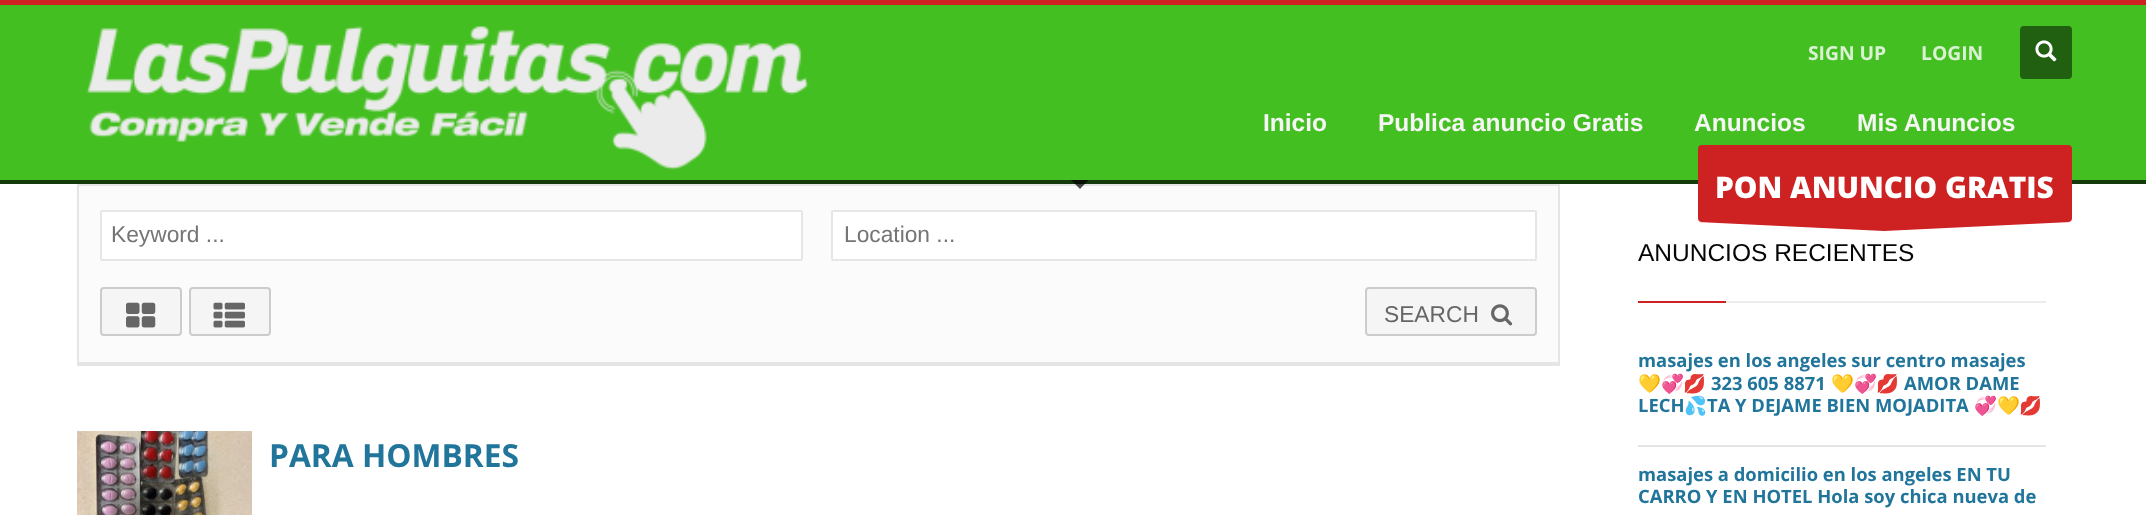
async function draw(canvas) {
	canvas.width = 2146;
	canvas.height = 515;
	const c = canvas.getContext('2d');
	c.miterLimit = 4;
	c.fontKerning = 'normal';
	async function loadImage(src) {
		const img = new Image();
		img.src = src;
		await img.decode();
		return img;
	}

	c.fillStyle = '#fff';
	c.fillRect(0, 0, 2146, 515);
	for (const [x, y, w, h, color] of [
		[0, 5, 2146, 175, '#44bf22'],
		[0, 0, 2146, 5, '#cd2122'],
		[0, 180, 2146, 4, '#14390a'],
		[79, 186, 1479, 176, '#fbfbfb'],
		[77, 184, 1482, 2, '#e5e5e5'],
	]) {
		c.fillStyle = color;
		c.fillRect(x, y, w, h);
	}
	c.fillStyle = '#000000b3';
	c.beginPath();
	c.moveTo(1071, 180);
	c.lineTo(1088.5, 180);
	c.lineTo(1080, 189);
	c.closePath();
	c.fill();
	c.drawImage(await loadImage('img1.png'), 86, 26, 723, 144);
	c.font = 'bold 19.25px Open Sans';
	c.fillStyle = '#daf2d3';
	c.fillText('SIGN UP', 1808, 60);
	c.fillText('LOGIN', 1921, 60);
	c.fillStyle = '#226011';
	c.beginPath();
	c.roundRect(2020, 26, 52, 53, 4);
	c.fill();
	c.drawImage(await loadImage('img2.png'), 2035, 40, 22, 22);
	c.font = 'bold 24.5px Liberation Sans';
	c.fillStyle = '#f5f5f5';
	for (const [text, x, y] of [
		['Inicio', 1263, 131],
		['Publica anuncio Gratis', 1378, 131],
		['Anuncios', 1694, 131],
		['Mis Anuncios', 1857, 131],
	]) {
		c.fillText(text, x, y);
	}
	c.fillStyle = '#cd2122';
	c.beginPath();
	c.roundRect(1698, 145, 374, 77, 4);
	c.fill();
	c.font = '800 29.75px Open Sans';
	c.fillStyle = '#fff';
	c.fillText('PON ANUNCIO GRATIS', 1715, 198);
	c.fillStyle = '#cd2122';
	c.beginPath();
	c.moveTo(2071, 222);
	c.lineTo(1884, 231);
	c.lineTo(1698, 222);
	c.closePath();
	c.fill('evenodd');
	for (const [x, y, w, h, color] of [
		[1558, 184, 2, 182, '#e5e5e5'],
		[77, 362, 1482, 4, '#e5e5e5'],
		[77, 184, 2, 182, '#e5e5e5'],
	]) {
		c.fillStyle = color;
		c.fillRect(x, y, w, h);
	}
	c.fillStyle = '#fff';
	c.beginPath();
	c.roundRect(101, 211, 701, 49, 1);
	c.fill();
	c.strokeStyle = '#e6e6e6';
	c.lineWidth = 2;
	c.stroke();
	c.font = '22.75px Liberation Sans';
	c.fillStyle = '#757575';
	c.fillText('Keyword ...', 111, 242);
	c.fillStyle = '#fff';
	c.beginPath();
	c.roundRect(832, 211, 704, 49, 1);
	c.fill();
	c.stroke();
	c.fillStyle = '#757575';
	c.fillText('Location ...', 844, 242);
	c.fillStyle = '#f5f5f5';
	c.beginPath();
	c.roundRect(101, 288, 80, 47, 3);
	c.fill();
	c.strokeStyle = '#ccc';
	c.stroke();
	c.drawImage(await loadImage('img3.png'), 126, 302, 30, 26);
	c.beginPath();
	c.roundRect(190, 288, 80, 47, 3);
	c.fill();
	c.stroke();
	c.drawImage(await loadImage('img4.png'), 213, 302, 32, 26);
	c.beginPath();
	c.roundRect(1366, 288, 170, 47, 3);
	c.fill();
	c.stroke();
	c.fillStyle = '#666';
	c.fillText('SEARCH', 1384, 322);
	c.drawImage(await loadImage('img5.png'), 1491, 304, 22, 22);
	c.drawImage(await loadImage('img6.png'), 77, 431, 175, 84);
	c.font = 'bold 31.75px Open Sans';
	c.fillStyle = '#21759b';
	c.fillText('PARA HOMBRES', 269, 467);
	c.font = '24.5px Liberation Sans';
	c.fillStyle = '#050505';
	c.fillText('ANUNCIOS RECIENTES', 1638, 261);
	for (const [x, y, w, h, color] of [
		[1638, 301, 88, 2, '#cd2122'],
		[1726, 301, 320, 2, '#ececec'],
		[1638, 445, 408, 2, '#e5e5e5'],
	]) {
		c.fillStyle = color;
		c.fillRect(x, y, w, h);
	}
	c.font = 'bold 18.4px Open Sans';
	c.fillStyle = '#21759b';
	c.fillText('masajes en los angeles sur centro masajes', 1638, 367);
	c.font = 'bold 18.4px Noto Color Emoji';
	c.fillText('💛💞💋', 1638, 390);
	c.font = 'bold 18.4px Open Sans';
	c.fillText('323 605 8871', 1711, 390);
	c.font = 'bold 18.4px Noto Color Emoji';
	c.fillText('💛💞💋', 1831, 390);
	c.font = 'bold 18.4px Open Sans';
	c.fillText('AMOR DAME', 1904, 390);
	c.fillText('LECH', 1638, 412);
	c.font = 'bold 18.4px Noto Color Emoji';
	c.fillText('💦', 1684, 412);
	c.font = 'bold 18.4px Open Sans';
	c.fillText('TA Y DEJAME BIEN MOJADITA', 1707, 412);
	c.font = 'bold 18.4px Noto Color Emoji';
	c.fillText('💞💛💋', 1974, 412);
	c.font = 'bold 18.4px Open Sans';
	c.fillText('masajes a domicilio en los angeles EN TU', 1638, 481);
	c.fillText('CARRO Y EN HOTEL Hola soy chica nueva de', 1638, 503);
}

draw(document.querySelector('canvas'));
